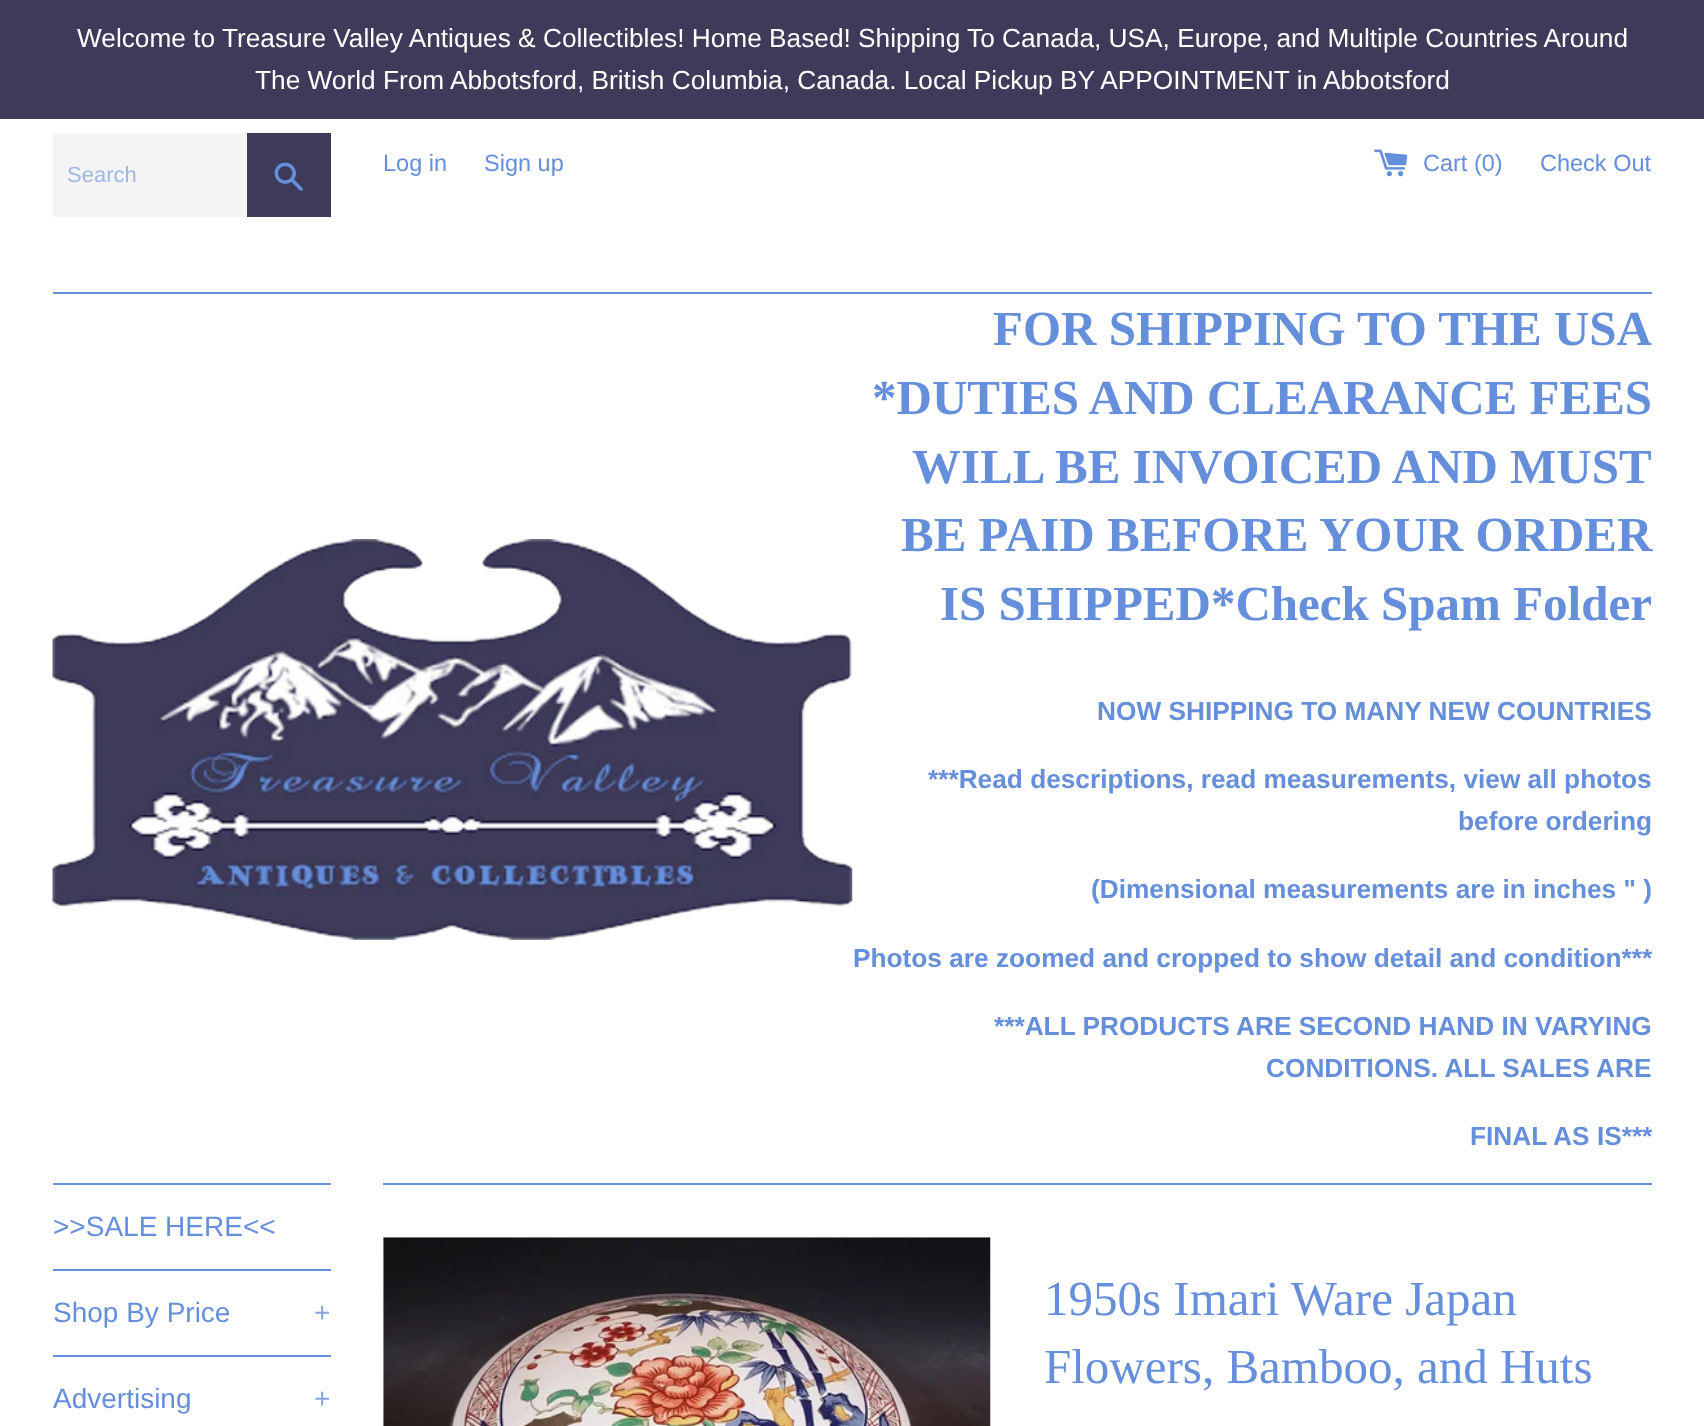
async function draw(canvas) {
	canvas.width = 1704;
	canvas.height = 1426;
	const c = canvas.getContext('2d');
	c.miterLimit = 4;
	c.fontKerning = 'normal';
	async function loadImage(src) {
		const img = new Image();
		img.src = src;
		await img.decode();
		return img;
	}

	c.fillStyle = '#fff';
	c.fillRect(0, 0, 1704, 1426);
	c.fillStyle = '#3d3b59';
	c.fillRect(0, 0, 1704, 119);
	c.font = '26.25px Liberation Sans';
	c.fillStyle = '#fff';
	c.fillText('Welcome to Treasure Valley Antiques & Collectibles! Home Based! Shipping To Canada, USA, Europe, and Multiple Countries Around', 77, 47);
	c.fillText('The World From Abbotsford, British Columbia, Canada. Local Pickup BY APPOINTMENT in Abbotsford', 255, 89);
	c.fillStyle = '#f4f4f4';
	c.fillRect(53, 133, 194, 84);
	c.font = '22px Liberation Sans';
	c.fillStyle = '#9eb7e5';
	c.fillText('Search', 67, 182);
	c.fillStyle = '#3d3b59';
	c.fillRect(247, 133, 84, 84);
	c.drawImage(await loadImage('img1.png'), 274, 162, 29, 29);
	c.font = '23.5px Liberation Sans';
	c.fillStyle = '#658edb';
	c.fillText('Log in', 383, 171);
	c.fillText('Sign up', 484, 171);
	c.drawImage(await loadImage('img2.png'), 1374, 149, 34, 28);
	c.fillText('Cart (0)', 1423, 171);
	c.fillText('Check Out', 1540, 171);
	c.fillRect(53, 292, 1599, 2);
	c.drawImage(await loadImage('img3.png'), 52, 539, 801, 401);
	c.font = 'bold 49px Liberation Serif';
	for (const [text, x, y] of [
		['FOR SHIPPING TO THE USA', 993, 345],
		['*DUTIES AND CLEARANCE FEES', 872, 414],
		['WILL BE INVOICED AND MUST', 912, 483],
		['BE PAID BEFORE YOUR ORDER', 901, 551],
		['IS SHIPPED*Check Spam Folder', 940, 620],
	]) {
		c.fillText(text, x, y);
	}
	c.font = 'bold 26.25px Liberation Sans';
	for (const [text, x, y] of [
		['NOW SHIPPING TO MANY NEW COUNTRIES', 1097, 720],
		['***Read descriptions, read measurements, view all photos', 928, 788],
		['before ordering', 1458, 830],
		['(Dimensional measurements are in inches " )', 1091, 898],
		['Photos are zoomed and cropped to show detail and condition***', 853, 967],
		['***ALL PRODUCTS ARE SECOND HAND IN VARYING', 994, 1035],
		['CONDITIONS. ALL SALES ARE', 1266, 1077],
		['FINAL AS IS***', 1470, 1145],
	]) {
		c.fillText(text, x, y);
	}
	c.fillRect(53, 1183, 278, 2);
	c.fillRect(53, 1269, 278, 2);
	c.font = '28px Liberation Sans';
	c.fillText('>>SALE HERE<<', 53, 1236);
	c.fillRect(53, 1355, 278, 2);
	c.fillText('Shop By Price', 53, 1322);
	c.fillStyle = '#84a5e2';
	c.fillText('+', 314, 1322);
	c.fillStyle = '#658edb';
	c.fillText('Advertising', 53, 1408);
	c.fillStyle = '#84a5e2';
	c.fillText('+', 314, 1408);
	c.fillStyle = '#658edb';
	c.fillRect(383, 1183, 1269, 2);
	c.drawImage(await loadImage('img4.png'), 383, 1237, 608, 189);
	c.font = '49px Liberation Serif';
	c.fillText('1950s Imari Ware Japan', 1044, 1315);
	c.fillText('Flowers, Bamboo, and Huts', 1044, 1383);
}

draw(document.querySelector('canvas'));
